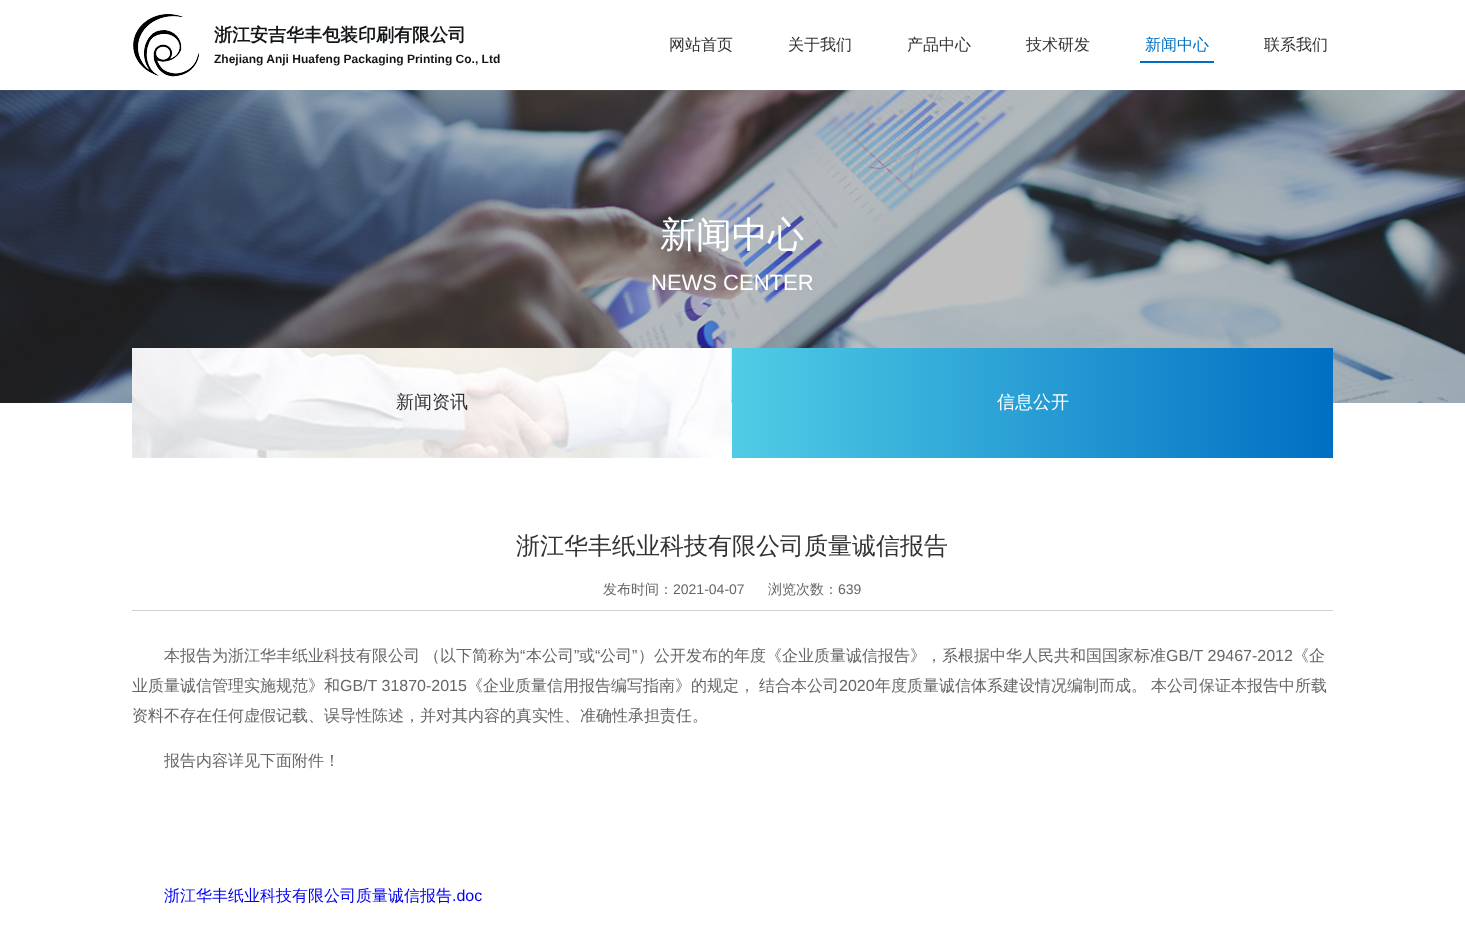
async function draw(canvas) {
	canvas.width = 1465;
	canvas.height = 927;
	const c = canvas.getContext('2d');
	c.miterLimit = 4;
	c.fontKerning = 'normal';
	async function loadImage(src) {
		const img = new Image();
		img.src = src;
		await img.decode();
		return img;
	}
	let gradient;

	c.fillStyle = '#fff';
	c.fillRect(0, 0, 1465, 927);
	c.drawImage(await loadImage('img1.png'), 133, 13, 67, 64);
	c.font = 'bold 18px WenQuanYi Zen Hei';
	c.fillStyle = '#131618';
	c.fillText('浙江安吉华丰包装印刷有限公司', 214, 41);
	c.font = 'bold 12px Liberation Sans';
	c.fillText('Zhejiang Anji Huafeng Packaging Printing Co., Ltd', 214, 63);
	c.font = '500 16px WenQuanYi Zen Hei';
	c.fillStyle = '#333';
	for (const [text, x, y] of [
		['网站首页', 669, 50],
		['关于我们', 788, 50],
		['产品中心', 907, 50],
		['技术研发', 1026, 50],
	]) {
		c.fillText(text, x, y);
	}
	c.fillStyle = '#006fc3';
	c.fillText('新闻中心', 1145, 50);
	c.fillRect(1140, 61, 74, 2);
	c.fillStyle = '#333';
	c.fillText('联系我们', 1264, 50);
	c.drawImage(await loadImage('img2.png'), 0, 90, 1465, 313);
	c.font = '500 36px WenQuanYi Zen Hei';
	c.fillStyle = '#fff';
	c.fillText('新闻中心', 660, 247);
	c.font = '22px Liberation Sans';
	c.fillText('NEWS CENTER', 651, 290);
	c.drawImage(await loadImage('img3.png'), 132, 348, 600, 110);
	c.font = '500 18px WenQuanYi Zen Hei';
	c.fillStyle = '#333';
	c.fillText('新闻资讯', 396, 408);
	gradient = c.createLinearGradient(1333, 403, 732, 403);
	gradient.addColorStop(0, '#006fc3');
	gradient.addColorStop(1, '#50cce5');
	c.fillStyle = gradient;
	c.fillRect(732, 348, 601, 110);
	c.fillStyle = '#fff';
	c.fillText('信息公开', 997, 408);
	c.fillStyle = '#d2d2d2';
	c.fillRect(132, 610, 1201, 1);
	c.font = '500 24px WenQuanYi Zen Hei';
	c.fillStyle = '#333';
	c.fillText('浙江华丰纸业科技有限公司质量诚信报告', 516, 554);
	c.font = '500 14px WenQuanYi Zen Hei';
	c.fillStyle = '#666';
	c.fillText('发布时间：', 603, 594);
	c.font = '14px Liberation Sans';
	c.fillText('2021-04-07', 673, 594);
	c.font = '500 14px WenQuanYi Zen Hei';
	c.fillText('浏览次数：', 768, 594);
	c.font = '14px Liberation Sans';
	c.fillText('639', 838, 594);
	c.font = '500 16px WenQuanYi Zen Hei';
	c.fillText('本报告为浙江华丰纸业科技有限公司', 164, 661);
	c.fillText('（以下简称为', 424, 661);
	c.font = '16px Liberation Sans';
	c.fillText('“', 520, 661);
	c.font = '500 16px WenQuanYi Zen Hei';
	c.fillText('本公司', 526, 661);
	c.font = '16px Liberation Sans';
	c.fillText('”', 574, 661);
	c.font = '500 16px WenQuanYi Zen Hei';
	c.fillText('或', 579, 661);
	c.font = '16px Liberation Sans';
	c.fillText('“', 595, 661);
	c.font = '500 16px WenQuanYi Zen Hei';
	c.fillText('公司', 600, 661);
	c.font = '16px Liberation Sans';
	c.fillText('”', 632, 661);
	c.font = '500 16px WenQuanYi Zen Hei';
	c.fillText('）公开发布的年度《企业质量诚信报告》，系根据中华人民共和国国家标准', 638, 661);
	c.font = '16px Liberation Sans';
	c.fillText('GB/T 29467-2012', 1166, 661);
	c.font = '500 16px WenQuanYi Zen Hei';
	c.fillText('《企', 1293, 661);
	c.fillText('业质量诚信管理实施规范》和', 132, 691);
	c.font = '16px Liberation Sans';
	c.fillText('GB/T 31870-2015', 340, 691);
	c.font = '500 16px WenQuanYi Zen Hei';
	c.fillText('《企业质量信用报告编写指南》的规定，', 467, 691);
	c.fillText('结合本公司', 759, 691);
	c.font = '16px Liberation Sans';
	c.fillText('2020', 839, 691);
	c.font = '500 16px WenQuanYi Zen Hei';
	for (const [text, x, y] of [
		['年度质量诚信体系建设情况编制而成。', 875, 691],
		['本公司保证本报告中所载', 1151, 691],
		['资料不存在任何虚假记载、误导性陈述，并对其内容的真实性、准确性承担责任。', 132, 721],
		['报告内容详见下面附件！', 164, 766],
	]) {
		c.fillText(text, x, y);
	}
	c.fillStyle = '#00e';
	c.fillText('浙江华丰纸业科技有限公司质量诚信报告', 164, 901);
	c.font = '16px Liberation Sans';
	c.fillText('.doc', 452, 901);
}

draw(document.querySelector('canvas'));
